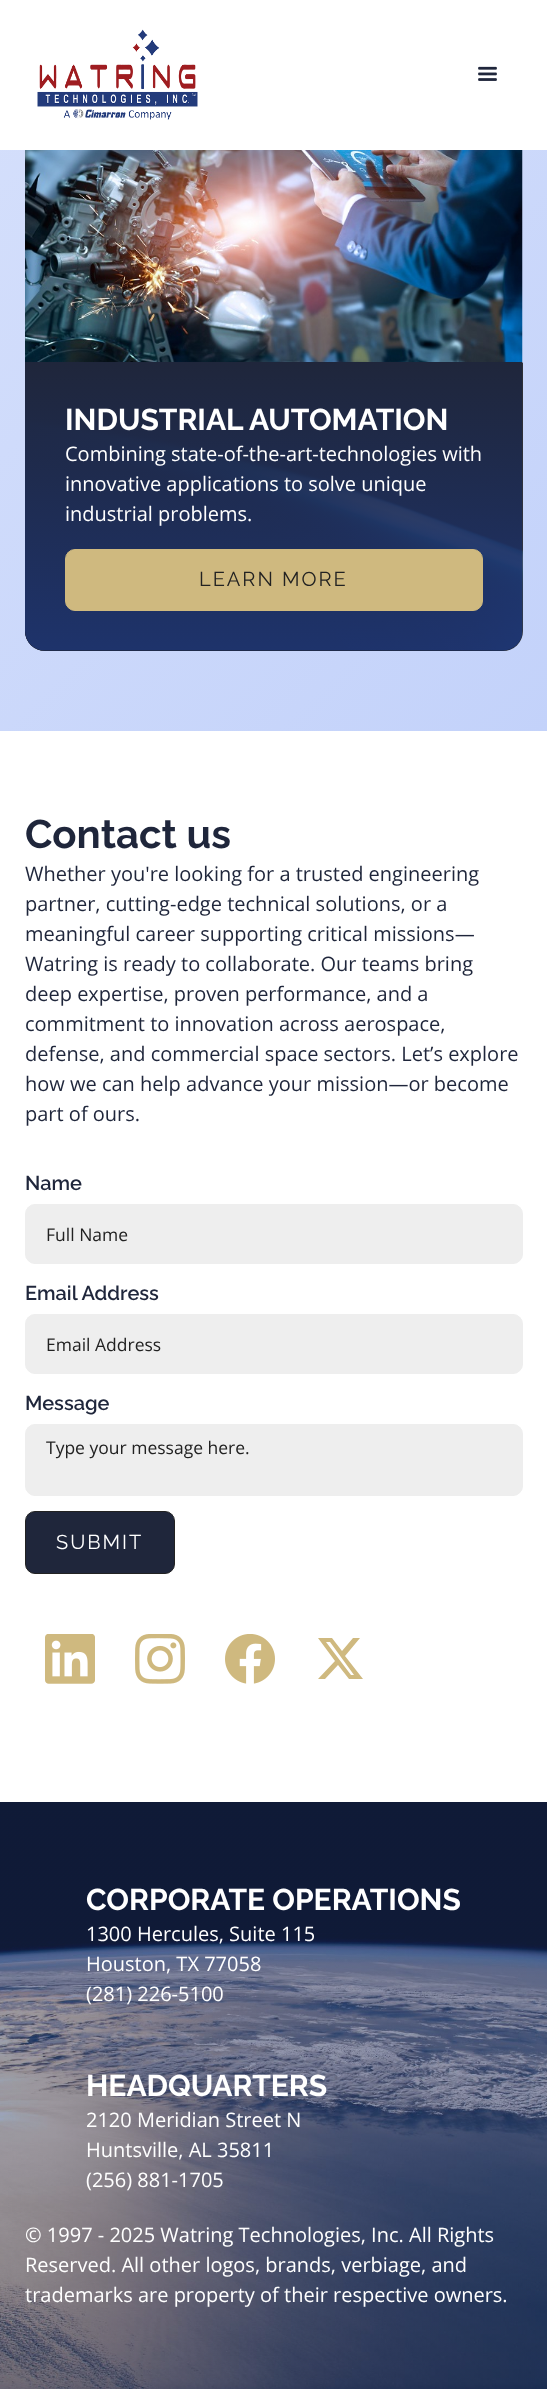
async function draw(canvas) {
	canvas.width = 547;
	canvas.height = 2389;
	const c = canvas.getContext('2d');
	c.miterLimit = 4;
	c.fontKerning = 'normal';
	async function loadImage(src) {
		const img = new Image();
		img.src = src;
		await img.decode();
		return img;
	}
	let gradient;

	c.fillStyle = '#fff';
	c.fillRect(0, 0, 547, 2389);
	c.drawImage(await loadImage('img1.png'), 37, 29, 161, 91);
	c.drawImage(await loadImage('img2.png'), 478, 66, 19, 15);
	gradient = c.createLinearGradient(-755, -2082, 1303, -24);
	gradient.addColorStop(0, '#fff');
	gradient.addColorStop(1, '#c3d2fa');
	c.fillStyle = gradient;
	c.fillRect(0, 150, 547, 581);
	c.drawImage(await loadImage('img3.png'), 25, 150, 498, 212);
	c.fillStyle = '#444';
	c.beginPath();
	c.roundRect(25, 363, 498, 288, [0, 0, 20, 20]);
	c.fill();
	c.drawImage(await loadImage('img4.png'), 25, 362, 498, 289);
	c.font = 'bold 30px Raleway';
	c.fillStyle = '#fff';
	c.fillText('INDUSTRIAL AUTOMATION', 65, 430);
	c.font = '20px Open Sans';
	for (const [text, x, y] of [
		['Combining state-of-the-art-technologies with', 65, 461],
		['innovative applications to solve unique', 65, 491],
		['industrial problems.', 65, 521],
	]) {
		c.fillText(text, x, y);
	}
	c.fillStyle = '#cfb97f';
	c.beginPath();
	c.roundRect(65.5, 549.5, 417, 61, 9.5);
	c.fill();
	c.strokeStyle = '#cfb97f';
	c.stroke();
	c.letterSpacing = '2px';
	c.font = '20px Raleway';
	c.fillStyle = '#222';
	c.fillText('LEARN MORE', 199, 586);
	c.letterSpacing = '0px';
	c.font = 'bold 40px Raleway';
	c.fillStyle = '#1f263b';
	c.fillText('Contact us', 25, 848);
	c.font = '20px Open Sans';
	for (const [text, x, y] of [
		['Whether you\'re looking for a trusted engineering', 25, 881],
		['partner, cutting-edge technical solutions, or a', 25, 911],
		['meaningful career supporting critical missions—', 25, 941],
		['Watring is ready to collaborate. Our teams bring', 25, 971],
		['deep expertise, proven performance, and a', 25, 1001],
		['commitment to innovation across aerospace,', 25, 1031],
		['defense, and commercial space sectors. Let’s explore', 25, 1061],
		['how we can help advance your mission—or become', 25, 1091],
		['part of ours.', 25, 1121],
	]) {
		c.fillText(text, x, y);
	}
	c.font = '600 20px Raleway';
	c.fillText('Name', 25, 1190);
	c.fillStyle = '#eee';
	c.beginPath();
	c.roundRect(25.5, 1204.5, 497, 59, 9.5);
	c.fill();
	c.strokeStyle = '#eee';
	c.stroke();
	c.font = '17.5px Open Sans';
	c.fillStyle = '#222';
	c.fillText('Full Name', 46, 1241);
	c.font = '600 20px Raleway';
	c.fillStyle = '#1f263b';
	c.fillText('Email Address', 25, 1300);
	c.fillStyle = '#eee';
	c.beginPath();
	c.roundRect(25.5, 1314.5, 497, 59, 9.5);
	c.fill();
	c.stroke();
	c.font = '17.5px Open Sans';
	c.fillStyle = '#222';
	c.fillText('Email Address', 46, 1351);
	c.font = '600 20px Raleway';
	c.fillStyle = '#1f263b';
	c.fillText('Message', 25, 1410);
	c.fillStyle = '#eee';
	c.beginPath();
	c.roundRect(25.5, 1424.5, 497, 71, 9.5);
	c.fill();
	c.stroke();
	c.font = '17.5px Open Sans';
	c.fillStyle = '#222';
	c.fillText('Type your message here.', 46, 1454);
	c.fillStyle = '#1f263b';
	c.beginPath();
	c.roundRect(25.5, 1511.5, 149, 62, 9.5);
	c.fill();
	c.strokeStyle = '#222';
	c.stroke();
	c.letterSpacing = '2px';
	c.font = '20px Raleway';
	c.fillStyle = '#fff';
	c.fillText('SUBMIT', 56, 1549);
	c.drawImage(await loadImage('img5.png'), 45, 1634, 50, 50);
	c.drawImage(await loadImage('img6.png'), 135, 1634, 50, 50);
	c.drawImage(await loadImage('img7.png'), 225, 1634, 50, 50);
	c.fillStyle = '#cfb97f';
	c.beginPath();
	c.moveTo(353, 1638);
	c.lineTo(360, 1638);
	c.lineTo(345, 1656);
	c.lineTo(363, 1679);
	c.lineTo(349, 1679);
	c.lineTo(338, 1665);
	c.lineTo(325, 1679);
	c.lineTo(318, 1679);
	c.lineTo(335, 1661);
	c.lineTo(318, 1638);
	c.lineTo(332, 1638);
	c.lineTo(342, 1651);
	c.closePath();
	c.moveTo(351, 1675);
	c.lineTo(354, 1675);
	c.lineTo(330, 1642);
	c.lineTo(326, 1642);
	c.closePath();
	c.fill();
	c.drawImage(await loadImage('img8.png'), 0, 1802, 547, 587);
	c.letterSpacing = '0px';
	c.font = 'bold 30px Raleway';
	c.fillStyle = '#fff';
	c.fillText('CORPORATE OPERATIONS', 86, 1910);
	c.font = '20px Open Sans';
	for (const [text, x, y] of [
		['1300 Hercules, Suite 115', 86, 1941],
		['Houston, TX 77058', 86, 1971],
		['(281) 226-5100', 86, 2001],
	]) {
		c.fillText(text, x, y);
	}
	c.font = 'bold 30px Raleway';
	c.fillText('HEADQUARTERS', 86, 2096);
	c.font = '20px Open Sans';
	for (const [text, x, y] of [
		['2120 Meridian Street N', 86, 2127],
		['Huntsville, AL 35811', 86, 2157],
		['(256) 881-1705', 86, 2187],
		['© 1997 - 2025 Watring Technologies, Inc. All Rights', 25, 2242],
		['Reserved. All other logos, brands, verbiage, and', 25, 2272],
		['trademarks are property of their respective owners.', 25, 2302],
	]) {
		c.fillText(text, x, y);
	}
}

draw(document.querySelector('canvas'));
